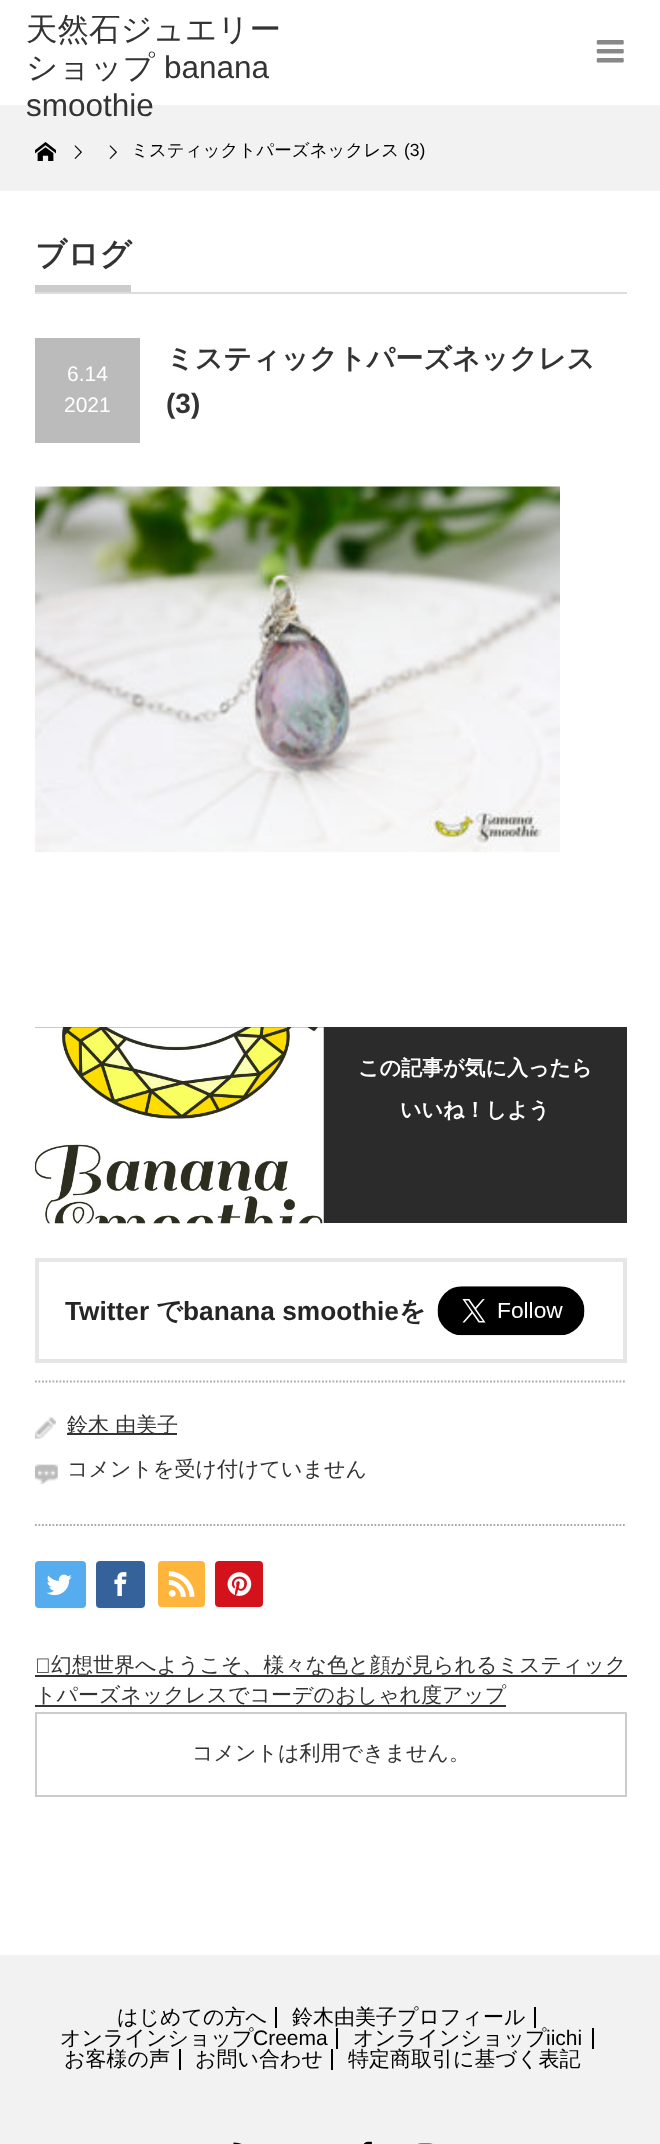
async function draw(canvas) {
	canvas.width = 660;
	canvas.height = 2144;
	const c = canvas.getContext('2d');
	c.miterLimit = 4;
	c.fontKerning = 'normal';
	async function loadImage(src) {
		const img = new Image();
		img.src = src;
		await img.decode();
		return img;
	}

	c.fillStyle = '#fff';
	c.fillRect(0, 0, 660, 2144);
	c.font = '500 31.5px WenQuanYi Zen Hei';
	c.fillStyle = '#333';
	c.fillText('天然石ジュエリー', 26, 40);
	c.fillText('ショップ', 26, 78);
	c.font = '31.5px Liberation Sans';
	c.fillText('banana', 164, 78);
	c.fillStyle = '#f2f2f2';
	c.fillRect(0, 105, 660, 86);
	c.fillStyle = '#333';
	c.fillText('smoothie', 26, 116);
	c.drawImage(await loadImage('img1.png'), 596, 40, 28, 23);
	c.drawImage(await loadImage('img2.png'), 35, 142, 21, 19);
	c.drawImage(await loadImage('img3.png'), 74, 145, 8, 14);
	c.drawImage(await loadImage('img3.png'), 109, 145, 8, 14);
	c.font = '500 17.5px WenQuanYi Zen Hei';
	c.fillStyle = '#000';
	c.fillText('ミスティックトパーズネックレス', 131, 156);
	c.font = '17.5px Liberation Sans';
	c.fillText('(3)', 404, 156);
	c.fillStyle = '#ddd';
	c.fillRect(35, 292, 592, 2);
	c.fillStyle = '#ccc';
	c.fillRect(35, 285, 96, 7);
	c.font = 'bold 31.5px WenQuanYi Zen Hei';
	c.fillStyle = '#333';
	c.fillText('ブログ', 35, 265);
	c.fillStyle = '#bbb';
	c.fillRect(35, 338, 105, 105);
	c.font = '21px Liberation Sans';
	c.fillStyle = '#fff';
	c.fillText('6.14', 67, 381);
	c.fillText('2021', 64, 412);
	c.font = 'bold 28px WenQuanYi Zen Hei';
	c.fillStyle = '#333';
	c.fillText('ミスティックトパーズネックレス', 166, 368);
	c.font = 'bold 28px Liberation Sans';
	c.fillText('(3)', 166, 413);
	c.drawImage(await loadImage('img4.png'), 35, 486, 525, 367);
	c.fillStyle = '#2b2b2b';
	c.fillRect(35, 1027, 592, 196);
	c.drawImage(await loadImage('img5.png'), 35, 1027, 289, 197);
	c.font = 'bold 21px WenQuanYi Zen Hei';
	c.fillStyle = '#fff';
	c.fillText('この記事が気に入ったら', 358, 1075);
	c.fillText('いいね！しよう', 400, 1117);
	c.strokeStyle = '#e6e6e6';
	c.lineWidth = 4;
	c.strokeRect(37, 1260, 588, 101);
	c.font = 'bold 26.25px Liberation Sans';
	c.fillStyle = '#252525';
	c.fillText('Twitter', 65, 1320);
	c.font = 'bold 26.25px WenQuanYi Zen Hei';
	c.fillText('で', 156, 1320);
	c.font = 'bold 26.25px Liberation Sans';
	c.fillText('banana smoothie', 183, 1320);
	c.font = 'bold 26.25px WenQuanYi Zen Hei';
	c.fillText('を', 399, 1320);
	c.drawImage(await loadImage('img6.png'), 437, 1286, 148, 50);
	c.beginPath();
	c.moveTo(35, 1381.5);
	c.lineTo(626.5, 1381.5);
	c.strokeStyle = '#aaa';
	c.lineWidth = 1.8;
	c.setLineDash([1.75, 1.75]);
	c.stroke();
	c.beginPath();
	c.moveTo(35, 1525);
	c.lineTo(626.5, 1525);
	c.stroke();
	c.drawImage(await loadImage('img7.png'), 35, 1417, 21, 22);
	c.fillStyle = '#333';
	c.fillRect(67, 1433, 110, 2);
	c.font = '500 21px WenQuanYi Zen Hei';
	c.fillText('鈴木 由美子', 67, 1432);
	c.drawImage(await loadImage('img8.png'), 35, 1464, 23, 20);
	c.fillText('コメントを受け付けていません', 67, 1476);
	c.fillStyle = '#f7f7f7';
	c.beginPath();
	c.moveTo(35, 1605);
	c.bezierCurveTo(35, 1612, 41, 1610, 46, 1610);
	c.lineTo(75, 1610);
	c.bezierCurveTo(78, 1610, 85, 1612, 86, 1607);
	c.lineTo(86, 1566);
	c.lineTo(86, 1605);
	c.bezierCurveTo(86, 1607, 84, 1608, 82, 1608);
	c.lineTo(38, 1608);
	c.bezierCurveTo(37, 1608, 35, 1607, 35, 1605);
	c.closePath();
	c.fill();
	c.fillStyle = '#55acee';
	c.beginPath();
	c.roundRect(35, 1561, 51, 47, 4);
	c.fill();
	c.drawImage(await loadImage('img9.png'), 46, 1574, 26, 22);
	c.fillStyle = '#f7f7f7';
	c.beginPath();
	c.moveTo(96, 1566);
	c.lineTo(96, 1606);
	c.bezierCurveTo(96, 1608, 98, 1610, 100, 1610);
	c.lineTo(141, 1610);
	c.bezierCurveTo(143, 1610, 145, 1608, 145, 1606);
	c.bezierCurveTo(144, 1607, 143, 1608, 142, 1608);
	c.lineTo(100, 1608);
	c.bezierCurveTo(98, 1608, 96, 1607, 96, 1605);
	c.closePath();
	c.fill();
	c.fillStyle = '#35629a';
	c.beginPath();
	c.roundRect(96, 1561, 49, 47, 4);
	c.fill();
	c.drawImage(await loadImage('img10.png'), 114, 1572, 13, 24);
	c.fillStyle = '#f7f7f7';
	c.beginPath();
	c.moveTo(158, 1605);
	c.bezierCurveTo(159, 1609, 166, 1608, 168, 1608);
	c.lineTo(202, 1608);
	c.lineTo(204, 1606);
	c.bezierCurveTo(206, 1604, 205, 1589, 205, 1586);
	c.lineTo(205, 1566);
	c.lineTo(205, 1603);
	c.bezierCurveTo(205, 1605, 203, 1606, 201, 1606);
	c.lineTo(161, 1606);
	c.bezierCurveTo(160, 1606, 159, 1606, 158, 1605);
	c.closePath();
	c.fill();
	c.fillStyle = '#ffb53c';
	c.beginPath();
	c.roundRect(158, 1561, 47, 46, 4);
	c.fill();
	c.drawImage(await loadImage('img11.png'), 168, 1571, 27, 26);
	c.fillStyle = '#f7f7f7';
	c.beginPath();
	c.moveTo(215, 1566);
	c.lineTo(215, 1598);
	c.bezierCurveTo(215, 1601, 214, 1607, 218, 1608);
	c.lineTo(239, 1608);
	c.bezierCurveTo(267, 1608, 263, 1613, 263, 1586);
	c.lineTo(263, 1573);
	c.bezierCurveTo(263, 1572, 264, 1567, 262, 1565);
	c.lineTo(262, 1603);
	c.bezierCurveTo(262, 1605, 261, 1606, 259, 1606);
	c.lineTo(219, 1606);
	c.bezierCurveTo(217, 1606, 215, 1605, 215, 1603);
	c.closePath();
	c.fill();
	c.fillStyle = '#d4121c';
	c.beginPath();
	c.roundRect(215, 1561, 48, 46, 4);
	c.fill();
	c.drawImage(await loadImage('img12.png'), 227, 1572, 25, 24);
	c.drawImage(await loadImage('img13.png'), 37, 1658, 12, 15);
	c.fillStyle = '#333';
	c.fillRect(35, 1675, 592, 2);
	c.fillText('幻想世界へようこそ、様々な色と顔が見られるミスティック', 51, 1672);
	c.fillRect(35, 1705, 471, 2);
	c.fillText('トパーズネックレスでコーデのおしゃれ度アップ', 35, 1702);
	c.strokeStyle = '#ccc';
	c.lineWidth = 2;
	c.setLineDash([]);
	c.strokeRect(36, 1713, 590, 83);
	c.fillText('コメントは利用できません。', 192, 1760);
	c.fillStyle = '#f2f2f2';
	c.fillRect(0, 1955, 660, 189);
	c.fillStyle = '#000';
	c.fillRect(275, 2007, 2, 21);
	c.fillText('はじめての方へ', 117, 2024);
	c.fillRect(534, 2007, 2, 21);
	c.fillText('鈴木由美子プロフィール', 292, 2024);
	c.fillRect(336, 2028, 2, 21);
	c.fillText('オンラインショップ', 60, 2045);
	c.font = '21px Liberation Sans';
	c.fillText('Creema', 253, 2045);
	c.fillRect(592, 2028, 2, 21);
	c.font = '500 21px WenQuanYi Zen Hei';
	c.fillText('オンラインショップ', 353, 2045);
	c.font = '21px Liberation Sans';
	c.fillText('iichi', 546, 2045);
	c.fillRect(179, 2049, 2, 21);
	c.font = '500 21px WenQuanYi Zen Hei';
	c.fillText('お客様の声', 64, 2066);
	c.fillRect(331, 2049, 2, 21);
	c.fillText('お問い合わせ', 195, 2066);
	c.fillText('特定商取引に基づく表記', 348, 2066);
	c.drawImage(await loadImage('img14.png'), 233, 2142, 9, 2);
	c.drawImage(await loadImage('img15.png'), 363, 2141, 9, 3);
	c.drawImage(await loadImage('img16.png'), 418, 2143, 15, 1);
}

draw(document.querySelector('canvas'));
